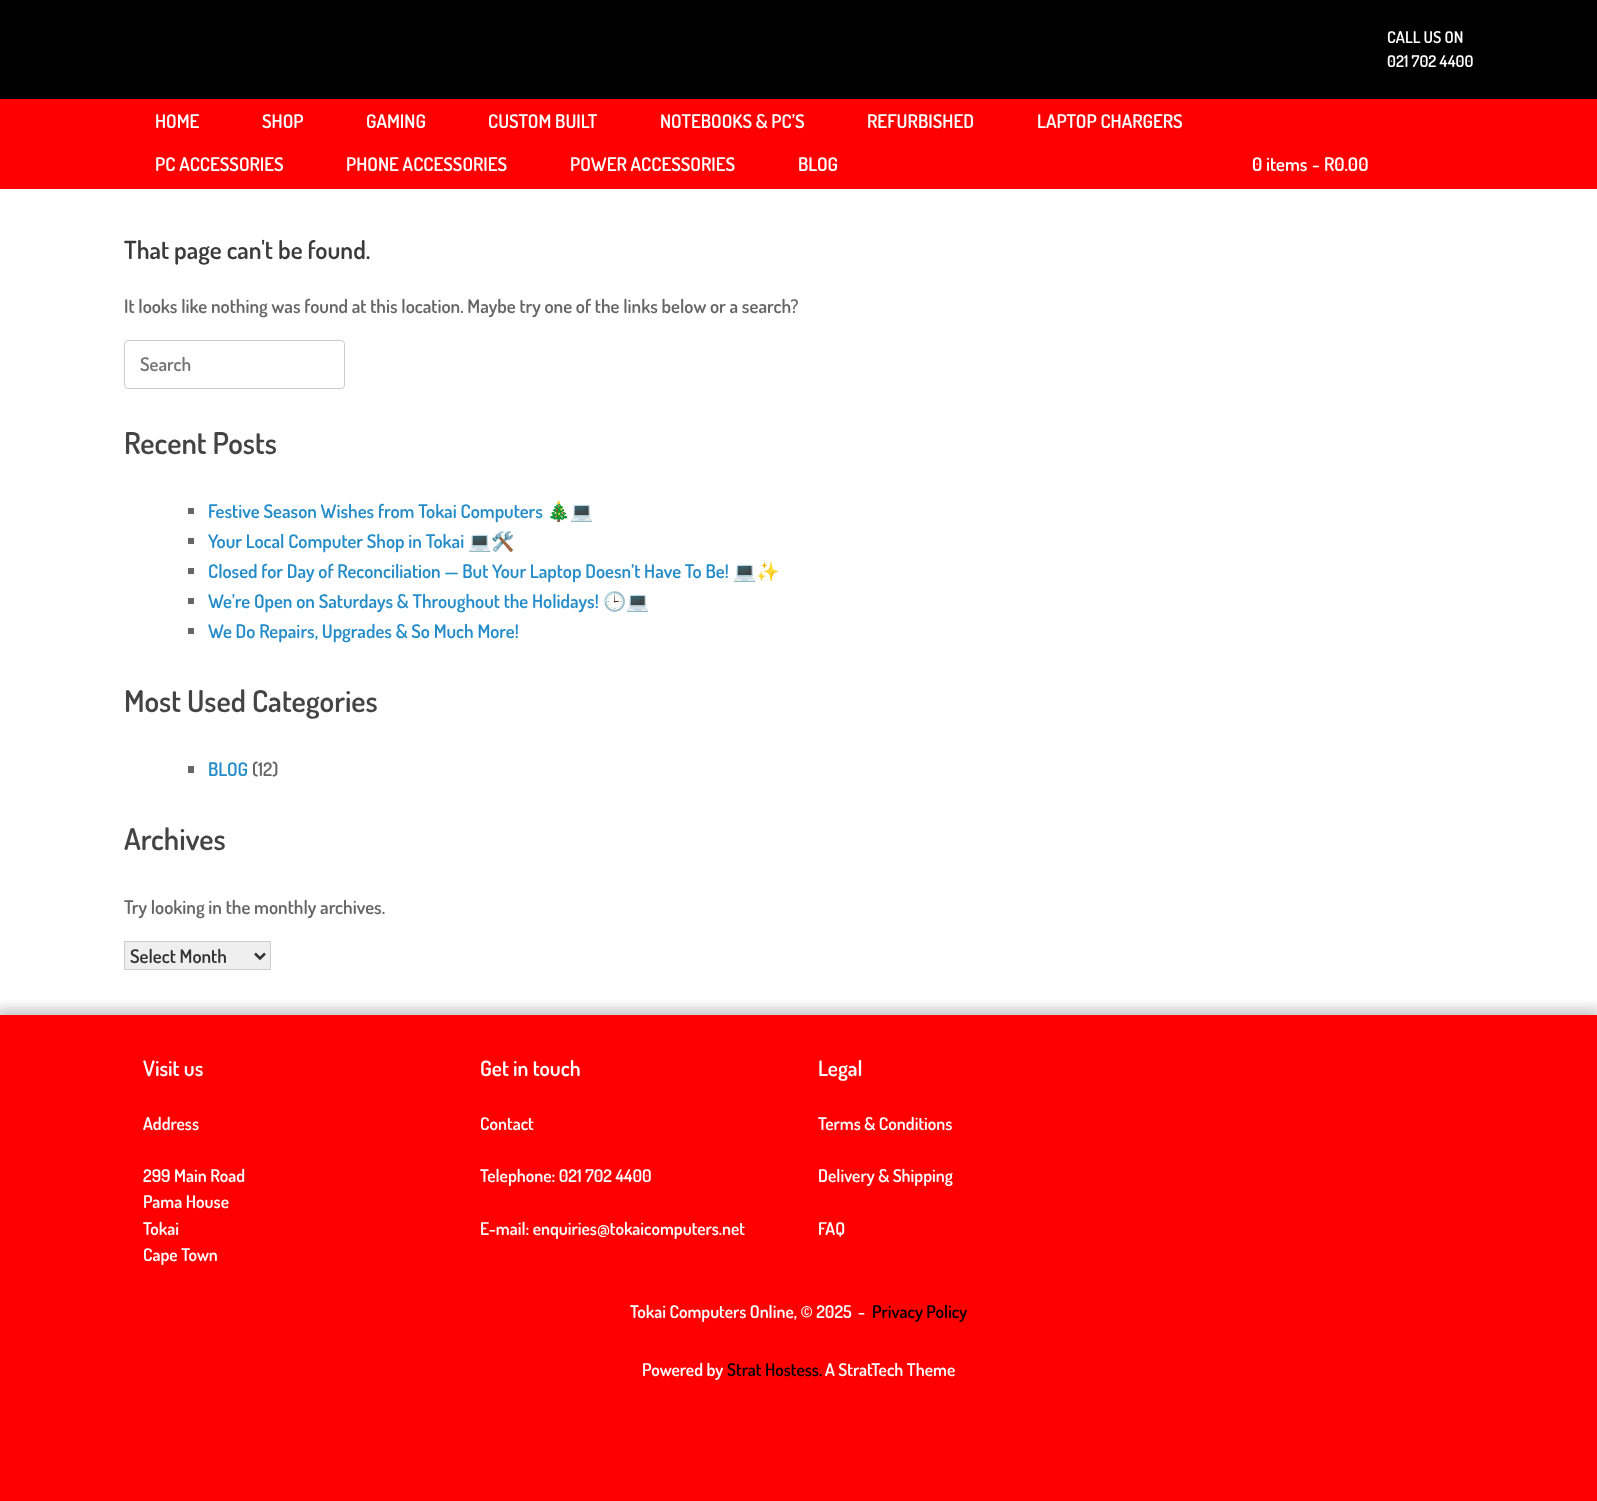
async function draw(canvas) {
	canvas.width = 1597;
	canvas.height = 1501;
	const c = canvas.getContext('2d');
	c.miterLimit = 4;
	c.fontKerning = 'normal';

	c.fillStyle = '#f00';
	c.fillRect(0, 0, 1597, 1501);
	c.fillStyle = '#000';
	c.fillRect(0, 0, 1597, 99);
	c.font = '600 16.25px Dosis';
	c.fillStyle = '#fff';
	c.fillText('CALL US ON', 1387, 43);
	c.fillText('021 702 4400', 1387, 67);
	c.font = '600 18.75px Dosis';
	for (const [text, x, y] of [
		['HOME', 155, 128],
		['SHOP', 262, 128],
		['GAMING', 366, 128],
		['CUSTOM BUILT', 488, 128],
		['NOTEBOOKS & PC’S', 660, 128],
		['REFURBISHED', 867, 128],
		['LAPTOP CHARGERS', 1037, 128],
		['PC ACCESSORIES', 155, 171],
		['PHONE ACCESSORIES', 346, 171],
		['POWER ACCESSORIES', 570, 171],
		['BLOG', 798, 171],
		['0 items', 1252, 171],
		['-', 1312, 171],
		['R0.00', 1324, 171],
	]) {
		c.fillText(text, x, y);
	}
	c.fillRect(0, 189, 1597, 826);
	c.font = '600 25px Dosis';
	c.fillStyle = '#3b3b3b';
	c.fillText('That page can\'t be found.', 124, 259);
	c.font = '600 18.75px Dosis';
	c.fillStyle = '#666';
	c.fillText('It looks like nothing was found at this location. Maybe try one of the links below or a search?', 124, 313);
	c.beginPath();
	c.roundRect(124.5, 340.5, 220, 48, 3.5);
	c.strokeStyle = '#ccc';
	c.stroke();
	c.fillStyle = '#757575';
	c.fillText('Search', 140, 371);
	c.font = '600 30px Dosis';
	c.fillStyle = '#444';
	c.fillText('Recent Posts', 124, 454);
	c.fillStyle = '#666';
	c.fillRect(188, 508, 6, 6);
	c.font = '600 18.75px Dosis';
	c.fillStyle = '#248cc8';
	c.fillText('Festive Season Wishes from Tokai Computers', 208, 518);
	c.font = 'bold 18.75px Noto Color Emoji';
	c.fillText('🎄💻', 547, 518);
	c.fillStyle = '#666';
	c.fillRect(188, 538, 6, 6);
	c.font = '600 18.75px Dosis';
	c.fillStyle = '#248cc8';
	c.fillText('Your Local Computer Shop in Tokai', 208, 548);
	c.font = 'bold 18.75px Noto Color Emoji';
	c.fillText('💻🛠️', 468, 548);
	c.fillStyle = '#666';
	c.fillRect(188, 568, 6, 6);
	c.font = '600 18.75px Dosis';
	c.fillStyle = '#248cc8';
	c.fillText('Closed for Day of Reconciliation — But Your Laptop Doesn’t Have To Be!', 208, 578);
	c.font = 'bold 18.75px Noto Color Emoji';
	c.fillText('💻✨', 733, 578);
	c.fillStyle = '#666';
	c.fillRect(188, 598, 6, 6);
	c.font = '600 18.75px Dosis';
	c.fillStyle = '#248cc8';
	c.fillText('We’re Open on Saturdays & Throughout the Holidays!', 208, 608);
	c.font = 'bold 18.75px Noto Color Emoji';
	c.fillText('🕒💻', 603, 608);
	c.fillStyle = '#666';
	c.fillRect(188, 628, 6, 6);
	c.font = '600 18.75px Dosis';
	c.fillStyle = '#248cc8';
	c.fillText('We Do Repairs, Upgrades & So Much More! ️', 208, 638);
	c.font = '600 30px Dosis';
	c.fillStyle = '#444';
	c.fillText('Most Used Categories', 124, 712);
	c.fillStyle = '#666';
	c.fillRect(188, 766, 6, 7);
	c.font = '600 18.75px Dosis';
	c.fillStyle = '#248cc8';
	c.fillText('BLOG', 208, 776);
	c.fillStyle = '#666';
	c.fillText('(12)', 252, 776);
	c.font = '600 30px Dosis';
	c.fillStyle = '#444';
	c.fillText('Archives', 124, 850);
	c.font = '600 18.75px Dosis';
	c.fillStyle = '#666';
	c.fillText('Try looking in the monthly archives.', 124, 914);
	c.fillStyle = '#efefef';
	c.beginPath();
	c.rect(124.5, 941.5, 146, 28);
	c.fill();
	c.stroke();
	c.beginPath();
	c.moveTo(255, 953.5);
	c.lineTo(260, 958.5);
	c.lineTo(265, 953.5);
	c.strokeStyle = '#333';
	c.lineWidth = 2.5;
	c.stroke();
	c.fillStyle = '#333';
	c.fillText('Select Month', 130, 963);
	c.save();
	c.beginPath();
	c.rect(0, 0, 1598, 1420);
	c.clip();
	c.beginPath();
	c.rect(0, 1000, 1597, 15);
	c.clip();
	c.fillStyle = '#00000033';
	c.filter = 'blur(6px)';
	c.beginPath();
	c.rect(-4, 1008, 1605, 412);
	c.fill();
	c.filter = 'none';
	c.restore();
	c.font = '600 21.25px Dosis';
	c.fillStyle = '#fff';
	c.fillText('Visit us', 143, 1076);
	c.font = '600 17.5px Dosis';
	for (const [text, x, y] of [
		['Address', 143, 1130],
		['299 Main Road', 143, 1182],
		['Pama House', 143, 1208],
		['Tokai', 143, 1235],
		['Cape Town', 143, 1261],
	]) {
		c.fillText(text, x, y);
	}
	c.font = '600 21.25px Dosis';
	c.fillText('Get in touch', 480, 1076);
	c.font = '600 17.5px Dosis';
	for (const [text, x, y] of [
		['Contact', 480, 1130],
		['Telephone: 021 702 4400', 480, 1182],
		['E-mail: enquiries@tokaicomputers.net', 480, 1235],
	]) {
		c.fillText(text, x, y);
	}
	c.font = '600 21.25px Dosis';
	c.fillText('Legal', 818, 1076);
	c.font = '600 17.5px Dosis';
	for (const [text, x, y] of [
		['Terms & Conditions', 818, 1130],
		['Delivery & Shipping', 818, 1182],
		['FAQ', 818, 1235],
		['Tokai Computers Online, © 2025', 630, 1318],
		['-', 858, 1318],
	]) {
		c.fillText(text, x, y);
	}
	c.fillStyle = '#000';
	c.fillText('Privacy Policy', 872, 1318);
	c.fillStyle = '#fff';
	c.fillText('Powered by', 642, 1376);
	c.fillStyle = '#000';
	c.fillText('Strat Hostess.', 727, 1376);
	c.fillStyle = '#fff';
	c.fillText('A StratTech Theme', 825, 1376);
}

draw(document.querySelector('canvas'));
